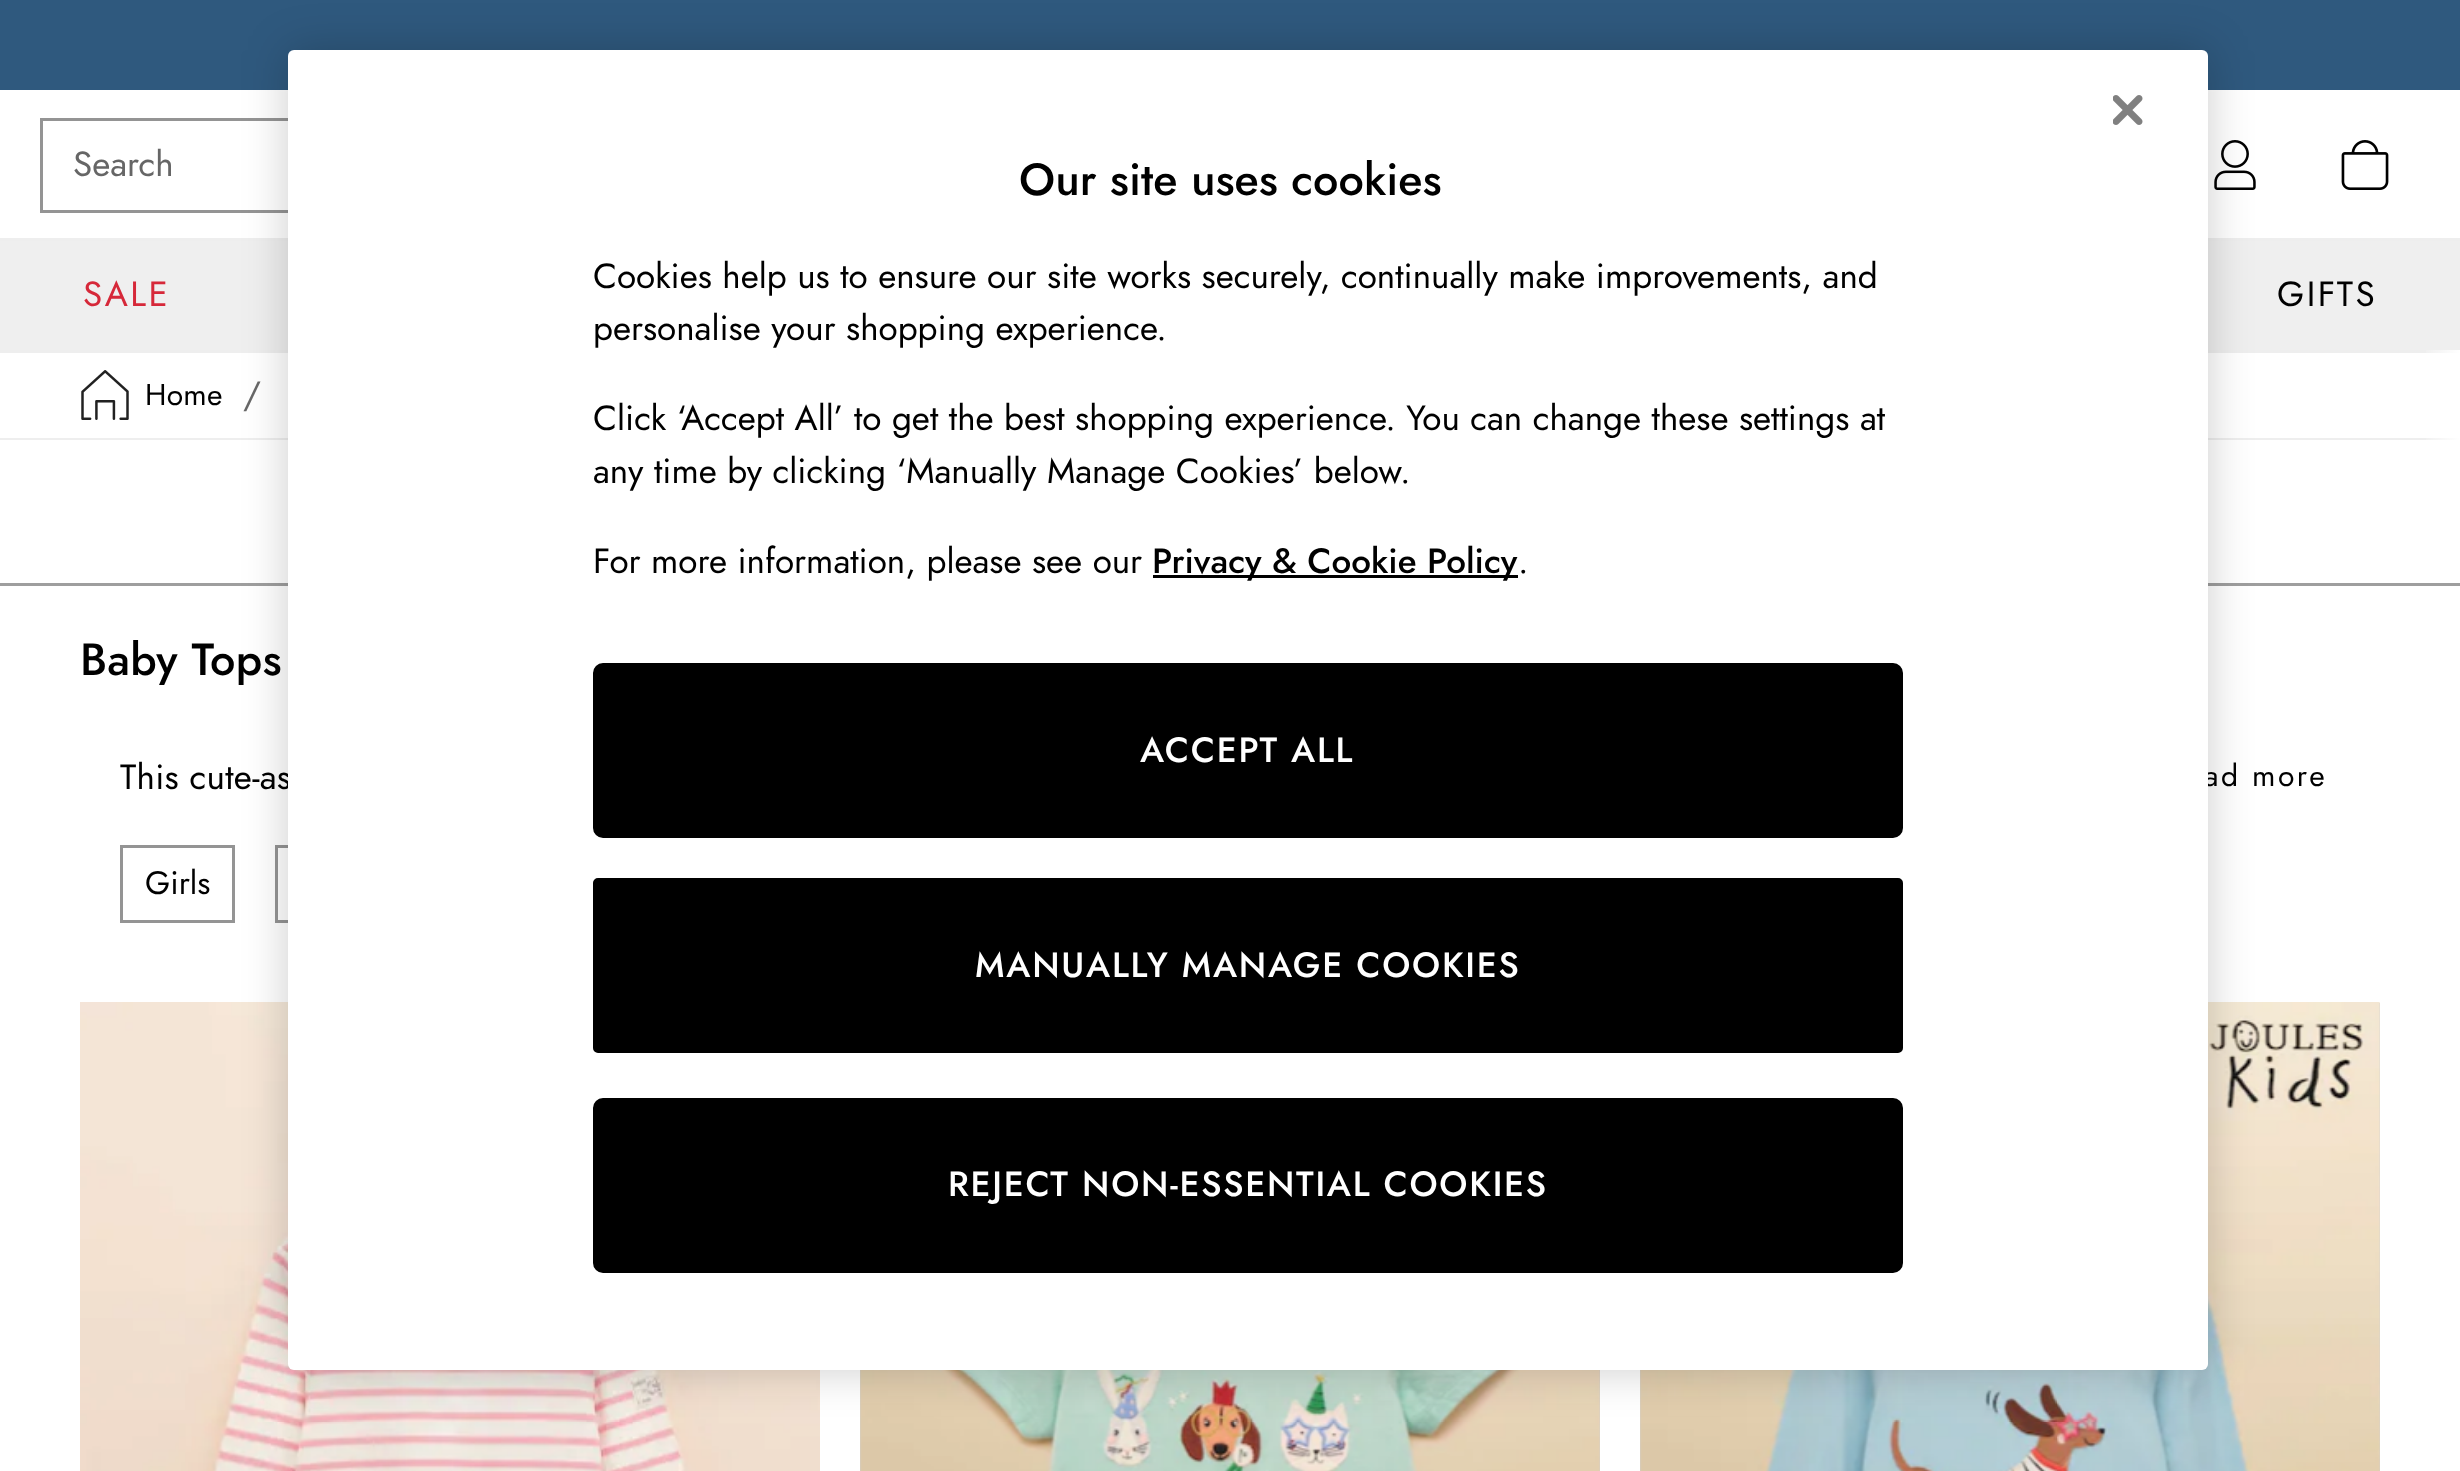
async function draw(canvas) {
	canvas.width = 2460;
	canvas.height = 1471;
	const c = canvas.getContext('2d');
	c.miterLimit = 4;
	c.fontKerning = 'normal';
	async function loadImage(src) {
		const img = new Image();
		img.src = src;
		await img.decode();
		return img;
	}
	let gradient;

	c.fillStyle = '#fff';
	c.fillRect(0, 0, 2460, 1471);
	c.fillStyle = '#2f597e';
	c.fillRect(0, 0, 2460, 90);
	c.fillStyle = '#eee';
	c.fillRect(0, 238, 2460, 3);
	c.strokeStyle = '#949494';
	c.lineWidth = 3;
	c.strokeRect(41.5, 119.5, 502, 92);
	c.font = '35px Jost';
	c.fillStyle = '#666';
	c.fillText('Search', 73, 176);
	c.drawImage(await loadImage('img1.png'), 2214, 140, 42, 50);
	c.drawImage(await loadImage('img2.png'), 2341, 140, 48, 50);
	c.fillStyle = '#efefef';
	c.fillRect(0, 241, 2460, 109);
	c.letterSpacing = '2.5px';
	c.fillStyle = '#d62839';
	c.fillText('SALE', 83, 306);
	c.fillStyle = '#000';
	c.fillText('GIFTS', 2277, 306);
	for (const [x, y, w, h, color] of [
		[0, 350, 2460, 3, '#eee'],
		[0, 438, 2460, 2, '#eee'],
		[0, 583, 2460, 3, '#9e9e9e'],
	]) {
		c.fillStyle = color;
		c.fillRect(x, y, w, h);
	}
	c.strokeRect(121.5, 846.5, 112, 75);
	c.strokeRect(276.5, 846.5, 110, 75);
	c.drawImage(await loadImage('img5.png'), 80, 1002, 740, 469);
	c.fillStyle = '#d1d1d1';
	c.fillRect(860, 1370, 740, 101);
	c.drawImage(await loadImage('img6.png'), 860, 1370, 740, 101);
	c.fillRect(1640, 1003, 740, 468);
	c.drawImage(await loadImage('img7.png'), 1640, 1002, 740, 469);
	c.fillStyle = '#00000033';
	c.filter = 'blur(22.5px)';
	c.beginPath();
	c.roundRect(288, 50, 1920, 1320, 6);
	c.fill();
	c.filter = 'none';
	c.letterSpacing = '0.25px';
	c.fillStyle = '#000';
	c.fillText('This cute-as', 120, 789);
	c.letterSpacing = '2.5px';
	c.font = '30px Jost';
	c.fillText('ad more', 2204, 786);
	c.fillStyle = '#fff';
	c.beginPath();
	c.roundRect(288, 50, 1920, 1320, 6);
	c.fill();
	c.drawImage(await loadImage('img3.png'), 2113, 95, 30, 30);
	c.letterSpacing = '0px';
	c.font = '500 45px "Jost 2"';
	c.fillStyle = '#000';
	c.fillText('Our site uses cookies', 1019, 195);
	c.font = '35px "Jost 2"';
	for (const [text, x, y] of [
		['Cookies help us to ensure our site works securely, continually make improvements, and', 593, 288],
		['personalise your shopping experience.', 593, 340],
		['Click ‘Accept All’ to get the best shopping experience. You can change these settings at', 593, 430],
		['any time by clicking ‘Manually Manage Cookies’ below.', 593, 483],
		['For more information, please see our', 593, 573],
	]) {
		c.fillText(text, x, y);
	}
	c.fillRect(1153, 575, 365, 3);
	c.font = '500 35px Jost';
	c.fillText('Privacy & Cookie Policy', 1152, 573);
	c.font = '35px "Jost 2"';
	c.fillText('.', 1518, 573);
	c.beginPath();
	c.roundRect(594.5, 664.5, 1307, 172, 8.5);
	c.fill();
	c.strokeStyle = '#000';
	c.stroke();
	c.letterSpacing = '1.75px';
	c.font = '500 35px "Jost 2"';
	c.fillStyle = '#fff';
	c.fillText('ACCEPT ALL', 1140, 762);
	c.fillStyle = '#000';
	c.beginPath();
	c.roundRect(594.5, 879.5, 1307, 172, 3.5);
	c.fill();
	c.stroke();
	c.fillStyle = '#fff';
	c.fillText('MANUALLY MANAGE COOKIES', 975, 977);
	c.fillStyle = '#000';
	c.beginPath();
	c.roundRect(594.5, 1099.5, 1307, 172, 8.5);
	c.fill();
	c.stroke();
	c.fillStyle = '#fff';
	c.fillText('REJECT NON-ESSENTIAL COOKIES', 948, 1196);
	c.drawImage(await loadImage('img4.png'), 81, 370, 48, 50);
	c.letterSpacing = '0.25px';
	c.font = '30px Jost';
	c.fillStyle = '#000';
	c.fillText('Home', 145, 405);
	c.font = '35px Jost';
	c.fillStyle = '#666';
	c.fillText('/', 243, 406);
	gradient = c.createLinearGradient(2420, 395, 2460, 395);
	gradient.addColorStop(0, '#ffffff00');
	gradient.addColorStop(1, '#fff');
	c.fillStyle = gradient;
	c.fillRect(2426, 350, 34, 90);
	c.font = '500 45px Jost';
	c.fillStyle = '#000';
	c.fillText('Baby Tops', 80, 675);
	c.letterSpacing = '0px';
	c.font = '32.5px Jost';
	c.fillText('Girls', 145, 894);
}

draw(document.querySelector('canvas'));
